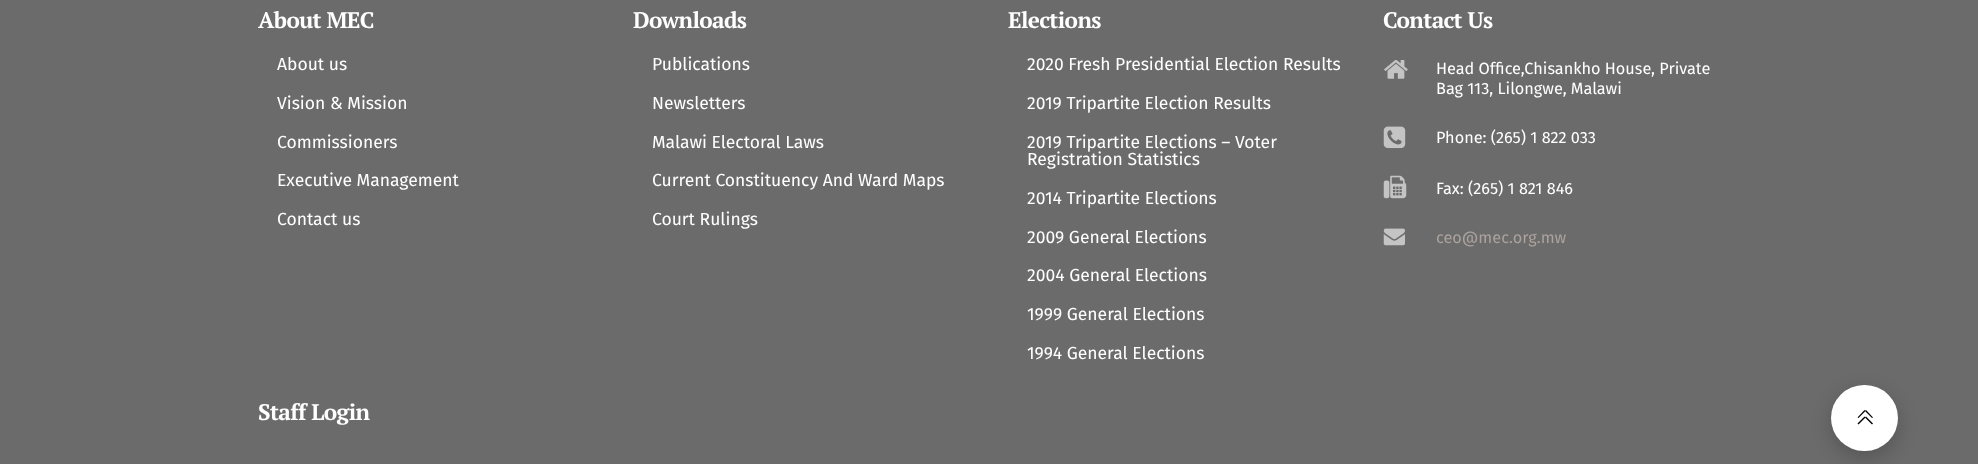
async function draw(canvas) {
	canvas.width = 1978;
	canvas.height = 464;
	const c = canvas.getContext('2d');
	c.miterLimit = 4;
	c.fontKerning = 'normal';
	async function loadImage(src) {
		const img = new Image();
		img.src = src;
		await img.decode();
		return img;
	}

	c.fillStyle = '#6b6b6b';
	c.fillRect(0, 0, 1978, 464);
	c.letterSpacing = '-0.6px';
	c.font = 'bold 22.5px PT Serif';
	c.fillStyle = '#fff';
	c.fillText('About MEC', 258, 28);
	c.letterSpacing = '0px';
	c.font = '17.5px Fira Sans';
	for (const [text, x, y] of [
		['About us', 277, 70],
		['Vision & Mission', 277, 109],
		['Commissioners', 277, 148],
		['Executive Management', 277, 186],
		['Contact us', 277, 225],
	]) {
		c.fillText(text, x, y);
	}
	c.letterSpacing = '-0.6px';
	c.font = 'bold 22.5px PT Serif';
	c.fillText('Downloads', 633, 28);
	c.letterSpacing = '0px';
	c.font = '17.5px Fira Sans';
	for (const [text, x, y] of [
		['Publications', 652, 70],
		['Newsletters', 652, 109],
		['Malawi Electoral Laws', 652, 148],
		['Current Constituency And Ward Maps', 652, 186],
		['Court Rulings', 652, 225],
	]) {
		c.fillText(text, x, y);
	}
	c.letterSpacing = '-0.6px';
	c.font = 'bold 22.5px PT Serif';
	c.fillText('Elections', 1008, 28);
	c.letterSpacing = '0px';
	c.font = '17.5px Fira Sans';
	for (const [text, x, y] of [
		['2020 Fresh Presidential Election Results', 1027, 70],
		['2019 Tripartite Election Results', 1027, 109],
		['2019 Tripartite Elections – Voter', 1027, 148],
		['Registration Statistics', 1027, 165],
		['2014 Tripartite Elections', 1027, 204],
		['2009 General Elections', 1027, 243],
		['2004 General Elections', 1027, 281],
		['1999 General Elections', 1027, 320],
		['1994 General Elections', 1027, 359],
	]) {
		c.fillText(text, x, y);
	}
	c.letterSpacing = '-0.6px';
	c.font = 'bold 22.5px PT Serif';
	c.fillText('Contact Us', 1383, 28);
	c.drawImage(await loadImage('img1.png'), 1384, 60, 24, 19);
	c.letterSpacing = '0px';
	c.font = '16.25px Fira Sans';
	c.fillText('Head Office,Chisankho House, Private', 1436, 74);
	c.fillText('Bag 113, Lilongwe, Malawi', 1436, 94);
	c.drawImage(await loadImage('img2.png'), 1383, 126, 23, 23);
	c.fillText('Phone: (265) 1 822 033', 1436, 143);
	c.drawImage(await loadImage('img3.png'), 1383, 175, 24, 24);
	c.fillText('Fax: (265) 1 821 846', 1436, 194);
	c.drawImage(await loadImage('img4.png'), 1383, 228, 22, 18);
	c.fillStyle = '#aba29d';
	c.fillText('ceo@mec.org.mw', 1436, 243);
	c.letterSpacing = '-0.6px';
	c.font = 'bold 22.5px PT Serif';
	c.fillStyle = '#fff';
	c.fillText('Staff Login', 258, 420);
	c.fillStyle = '#00000033';
	c.filter = 'blur(9.5px)';
	c.beginPath();
	c.roundRect(1831, 391, 67, 67, 33.5);
	c.fill();
	c.filter = 'none';
	c.fillStyle = '#fff';
	c.beginPath();
	c.roundRect(1831, 385, 67, 66, 33);
	c.fill();
	c.fillStyle = '#000';
	c.beginPath();
	c.moveTo(1857.5, 417.5);
	c.lineTo(1864.5, 410);
	c.lineTo(1865.5, 411);
	c.lineTo(1858.5, 418);
	c.closePath();
	c.fill();
	c.beginPath();
	c.moveTo(1857.5, 423.5);
	c.lineTo(1864.5, 416.5);
	c.lineTo(1865.5, 417.5);
	c.lineTo(1858.5, 424.5);
	c.closePath();
	c.fill();
	c.beginPath();
	c.moveTo(1866, 416.5);
	c.lineTo(1873, 423.5);
	c.lineTo(1872, 424.5);
	c.lineTo(1865, 417.5);
	c.closePath();
	c.fill();
	c.beginPath();
	c.moveTo(1866, 410);
	c.lineTo(1873, 417.5);
	c.lineTo(1872, 418);
	c.lineTo(1865, 411);
	c.closePath();
	c.fill();
}

draw(document.querySelector('canvas'));
